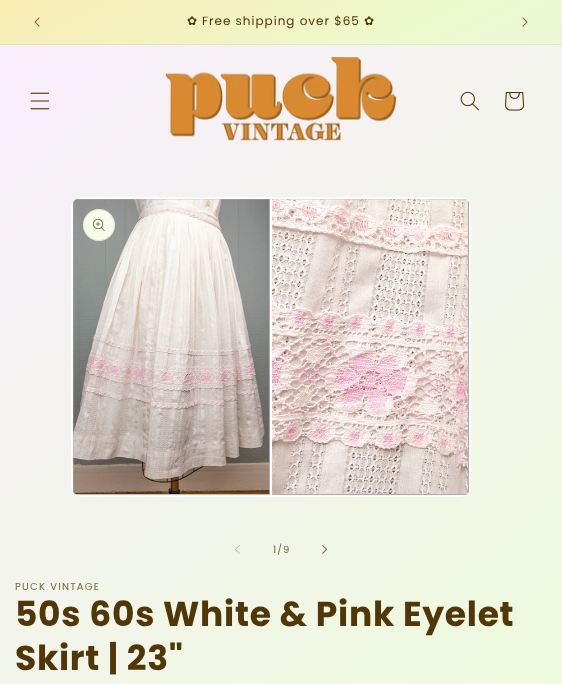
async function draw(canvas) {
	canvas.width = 562;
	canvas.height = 684;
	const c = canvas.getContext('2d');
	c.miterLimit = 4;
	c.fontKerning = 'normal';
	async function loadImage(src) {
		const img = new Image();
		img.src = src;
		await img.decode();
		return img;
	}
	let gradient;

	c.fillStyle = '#fff';
	c.fillRect(0, 0, 562, 684);
	gradient = c.createLinearGradient(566, 681, -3.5, 2.9);
	gradient.addColorStop(0, '#eefadd');
	gradient.addColorStop(1, '#f8eefd');
	c.fillStyle = gradient;
	c.fillRect(0, 45, 562, 114);
	gradient = c.createLinearGradient(85, -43, 477, 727);
	gradient.addColorStop(0, '#f9ecb3');
	gradient.addColorStop(0.26, '#ecfacf');
	gradient.addColorStop(0.89, '#f0d7ff');
	c.fillStyle = gradient;
	c.fillRect(0, 0, 562, 44);
	gradient = c.createLinearGradient(85, -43, 477, 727);
	gradient.addColorStop(0, '#ecdda5');
	gradient.addColorStop(0.26, '#e0eabf');
	gradient.addColorStop(0.89, '#e3caeb');
	c.fillStyle = gradient;
	c.fillRect(0, 44, 562, 1);
	c.drawImage(await loadImage('img1.png'), 34, 17, 6, 10);
	c.letterSpacing = '1px';
	c.font = '12px DejaVu Sans';
	c.fillStyle = '#513607';
	c.fillText('✿', 187, 25);
	c.font = '12px Poppins';
	c.fillText('Free shipping over $65', 202, 25);
	c.font = '12px DejaVu Sans';
	c.fillText('✿', 364, 25);
	c.drawImage(await loadImage('img2.png'), 522, 17, 6, 10);
	c.drawImage(await loadImage('img3.png'), 30, 92, 20, 18);
	c.drawImage(await loadImage('img4.png'), 165, 57, 232, 84);
	c.drawImage(await loadImage('img5.png'), 460, 91, 19, 20);
	c.drawImage(await loadImage('img6.png'), 505, 92, 20, 19);
	gradient = c.createLinearGradient(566, 681, -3.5, 2.9);
	gradient.addColorStop(0, '#eefadd');
	gradient.addColorStop(1, '#f8eefd');
	c.fillStyle = gradient;
	c.fillRect(0, 159, 562, 525);
	c.drawImage(await loadImage('img7.png'), 71, 197, 400, 300);
	c.fillStyle = '#f5fde9';
	c.beginPath();
	c.arc(99, 225, 16, 0, 2 * Math.PI);
	c.fill();
	c.beginPath();
	c.arc(99, 225, 15.5, 0, 2 * Math.PI);
	c.strokeStyle = '#5136071a';
	c.stroke();
	c.drawImage(await loadImage('img8.png'), 93, 219, 12, 12);
	c.drawImage(await loadImage('img9.png'), 235, 545, 5, 9);
	c.font = '10px Poppins';
	c.fillStyle = '#79663f';
	c.fillText('1/9', 273, 553);
	c.drawImage(await loadImage('img10.png'), 322, 545, 5, 9);
	c.letterSpacing = '1.25px';
	c.fillText('PUCK VINTAGE', 15, 590);
	c.letterSpacing = '0.7px';
	c.font = 'bold 34.5px Poppins';
	c.fillStyle = '#513607';
	c.fillText('50s 60s White & Pink Eyelet', 15, 626);
	c.fillText('Skirt | 23"', 15, 670);
}

draw(document.querySelector('canvas'));
